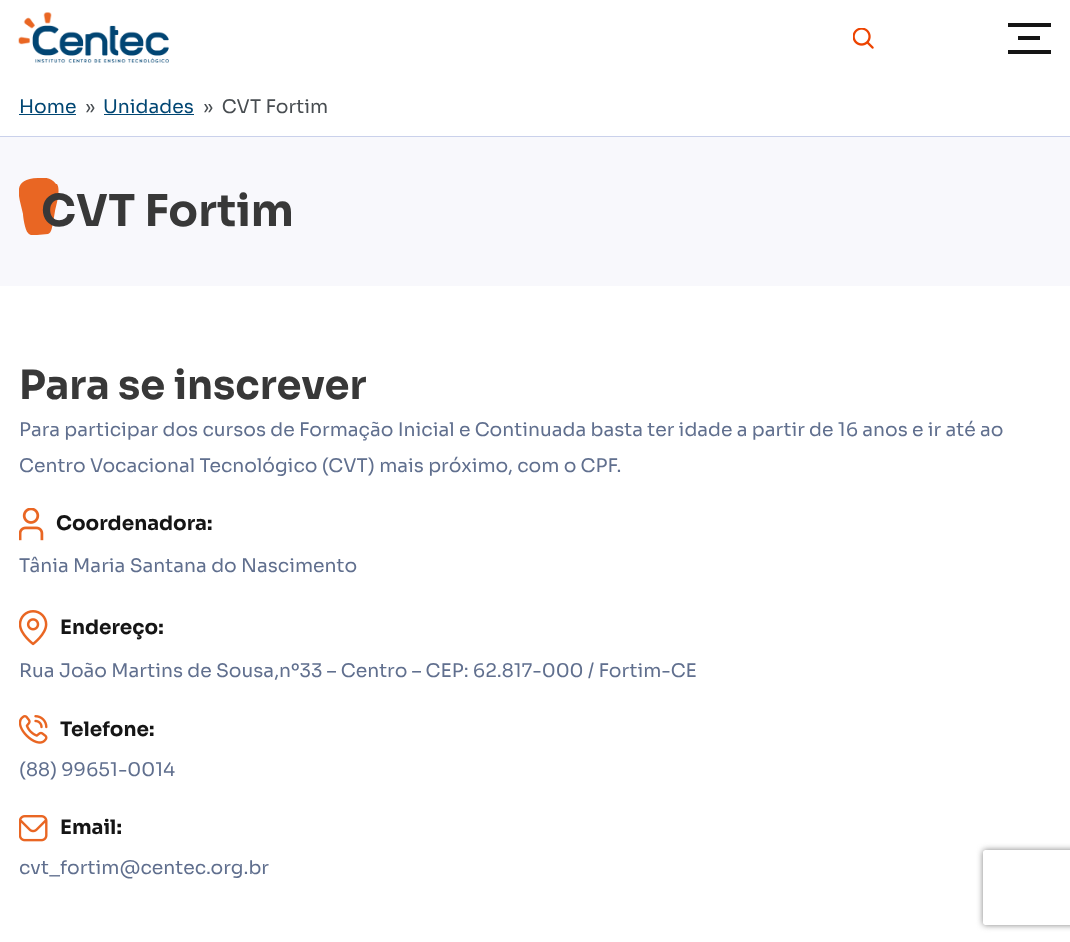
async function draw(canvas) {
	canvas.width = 1070;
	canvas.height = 942;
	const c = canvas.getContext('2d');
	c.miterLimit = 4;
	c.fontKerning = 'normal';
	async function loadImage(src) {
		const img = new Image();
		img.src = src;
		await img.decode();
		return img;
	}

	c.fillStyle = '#fff';
	c.fillRect(0, 0, 1070, 942);
	c.drawImage(await loadImage('img1.png'), 18, 12, 151, 51);
	c.drawImage(await loadImage('img2.png'), 853, 28, 21, 21);
	for (const [x, y, w, h, color] of [
		[1008, 23, 43, 4, '#151515'],
		[1018, 36, 22, 4, '#151515'],
		[1008, 50, 43, 4, '#151515'],
	]) {
		c.fillStyle = color;
		c.fillRect(x, y, w, h);
	}
	c.font = '18.75px Sora';
	c.fillStyle = '#004673';
	c.fillText('Home', 19, 113);
	c.fillRect(19, 114, 57, 1);
	c.fillStyle = '#484d51';
	c.fillText('»', 85, 113);
	c.fillStyle = '#004673';
	c.fillText('Unidades', 103, 113);
	c.fillRect(104, 114, 90, 1);
	c.fillStyle = '#484d51';
	c.fillText('»  CVT Fortim', 203, 113);
	c.fillStyle = '#f8f8fc';
	c.fillRect(0, 137, 1070, 149);
	c.fillStyle = '#cad1eb';
	c.fillRect(0, 136, 1070, 1);
	c.save();
	c.beginPath();
	c.rect(19, 178, 40, 57);
	c.clip();
	c.fillStyle = '#e96623';
	c.beginPath();
	c.moveTo(56, 184);
	c.bezierCurveTo(52, 178, 45, 177, 38, 178);
	c.bezierCurveTo(11, 179, 19, 196, 23, 214);
	c.bezierCurveTo(23, 217, 25, 230, 28, 233);
	c.bezierCurveTo(30, 236, 34, 235, 37, 235);
	c.lineTo(48, 234);
	c.bezierCurveTo(52, 233, 52, 226, 53, 223);
	c.lineTo(55, 211);
	c.bezierCurveTo(56, 206, 61, 190, 57, 184);
	c.closePath();
	c.fill();
	c.restore();
	c.font = 'bold 43.75px Sora';
	c.fillStyle = '#383838';
	c.fillText('CVT Fortim', 41, 226);
	c.font = 'bold 40px Sora';
	c.fillText('Para se inscrever', 19, 399);
	c.font = '18.75px Sora';
	c.fillStyle = '#606f8e';
	c.fillText('Para participar dos cursos de Formação Inicial e Continuada basta ter idade a partir de 16 anos e ir até ao', 19, 436);
	c.fillText('Centro Vocacional Tecnológico (CVT) mais próximo, com o CPF.', 19, 472);
	c.drawImage(await loadImage('img3.png'), 19, 508, 25, 33);
	c.font = 'bold 20px Sora';
	c.fillStyle = '#151515';
	c.fillText('Coordenadora:', 56, 530);
	c.font = '18.75px Sora';
	c.fillStyle = '#606f8e';
	c.fillText('Tânia Maria Santana do Nascimento', 19, 572);
	c.drawImage(await loadImage('img4.png'), 19, 610, 29, 36);
	c.font = 'bold 20px Sora';
	c.fillStyle = '#151515';
	c.fillText('Endereço:', 60, 634);
	c.font = '18.75px Sora';
	c.fillStyle = '#606f8e';
	c.fillText('Rua João Martins de Sousa,nº33 – Centro – CEP: 62.817-000 / Fortim-CE', 19, 677);
	c.drawImage(await loadImage('img5.png'), 19, 715, 29, 29);
	c.font = 'bold 20px Sora';
	c.fillStyle = '#151515';
	c.fillText('Telefone:', 60, 736);
	c.font = '18.75px Sora';
	c.fillStyle = '#606f8e';
	c.fillText('(88) 99651-0014', 19, 776);
	c.drawImage(await loadImage('img6.png'), 19, 815, 29, 27);
	c.font = 'bold 20px Sora';
	c.fillStyle = '#151515';
	c.fillText('Email:', 60, 834);
	c.font = '18.75px Sora';
	c.fillStyle = '#606f8e';
	c.fillText('cvt_fortim@centec.org.br', 19, 874);
	c.save();
	c.beginPath();
	c.moveTo(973, 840);
	c.lineTo(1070, 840);
	c.lineTo(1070, 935);
	c.lineTo(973, 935);
	c.closePath();
	c.moveTo(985.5, 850);
	c.lineTo(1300.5, 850);
	c.bezierCurveTo(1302, 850, 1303, 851, 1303, 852.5);
	c.lineTo(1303, 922.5);
	c.bezierCurveTo(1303, 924, 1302, 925, 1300.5, 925);
	c.lineTo(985.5, 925);
	c.bezierCurveTo(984, 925, 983, 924, 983, 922.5);
	c.lineTo(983, 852.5);
	c.bezierCurveTo(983, 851, 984, 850, 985.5, 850);
	c.closePath();
	c.clip('evenodd');
	c.fillStyle = '#808080';
	c.filter = 'blur(3px)';
	c.beginPath();
	c.roundRect(983, 850, 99, 75, 2.5);
	c.fill();
	c.filter = 'none';
	c.restore();
}

draw(document.querySelector('canvas'));
